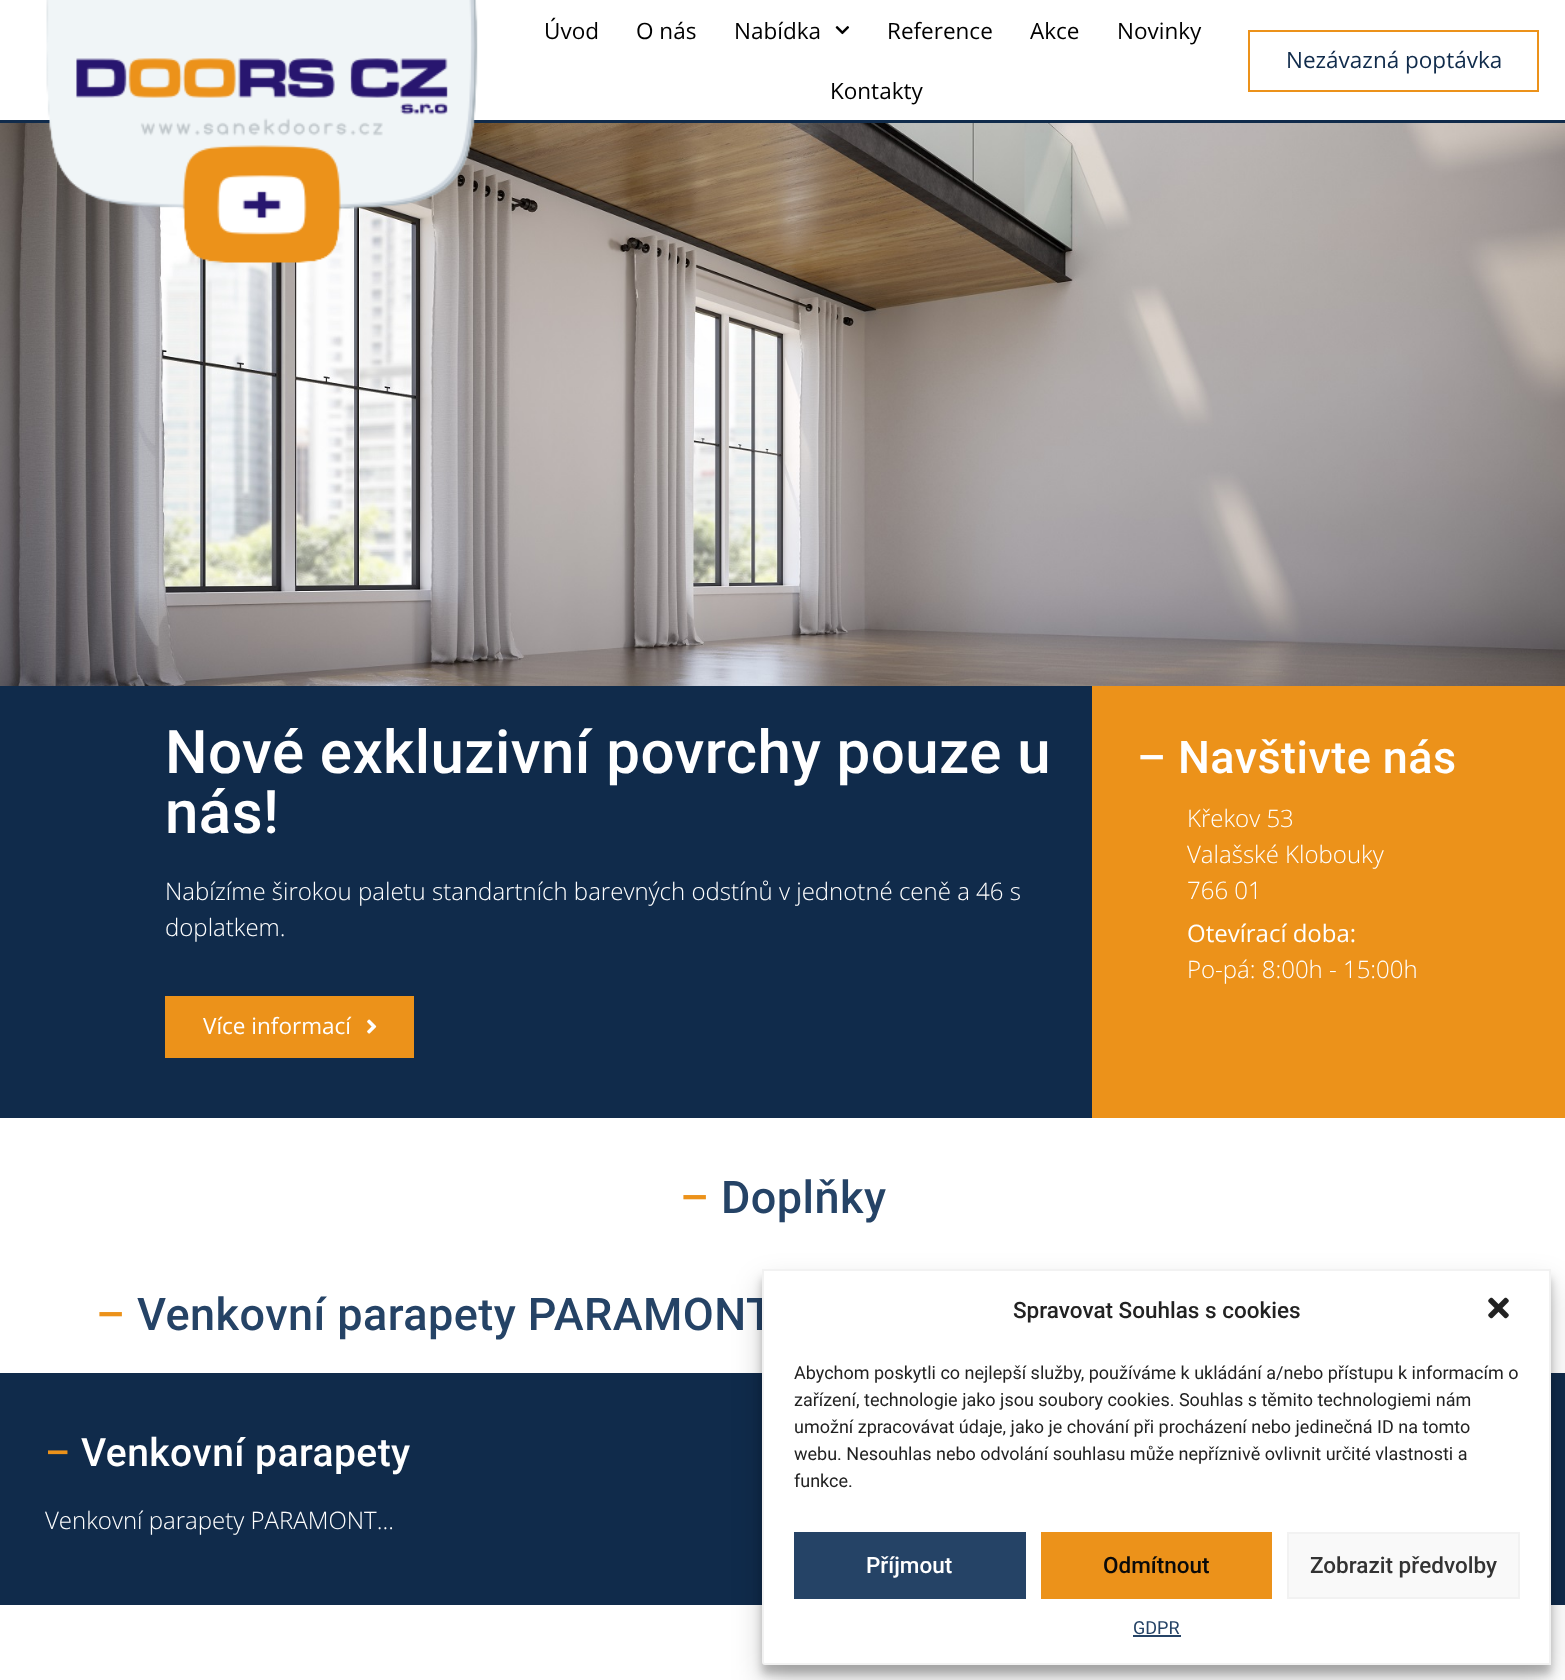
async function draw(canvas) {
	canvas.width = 1565;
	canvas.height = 1680;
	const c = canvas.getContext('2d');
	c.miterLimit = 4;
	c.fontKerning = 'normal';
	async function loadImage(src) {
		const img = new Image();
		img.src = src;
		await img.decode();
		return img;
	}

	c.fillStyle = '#fff';
	c.fillRect(0, 0, 1565, 1680);
	c.fillStyle = '#102b4b';
	c.fillRect(0, 120, 1565, 3);
	c.drawImage(await loadImage('img3.png'), 0, 123, 1565, 563);
	c.drawImage(await loadImage('img1.png'), 46, 0, 432, 264);
	c.font = '22.5px Open Sans';
	c.fillStyle = '#000';
	for (const [text, x, y] of [
		['Úvod', 544, 39],
		['O nás', 636, 39],
		['Nabídka', 734, 39],
	]) {
		c.fillText(text, x, y);
	}
	c.drawImage(await loadImage('img2.png'), 835, 26, 15, 9);
	for (const [text, x, y] of [
		['Reference', 887, 39],
		['Akce', 1030, 39],
		['Novinky', 1117, 39],
		['Kontakty', 830, 99],
	]) {
		c.fillText(text, x, y);
	}
	c.strokeStyle = '#ec921a';
	c.lineWidth = 2;
	c.strokeRect(1249, 31, 289, 60);
	c.fillStyle = '#102b4b';
	c.fillText('Nezávazná poptávka', 1286, 68);
	c.fillStyle = '#ec921a';
	c.fillRect(1092, 686, 473, 432);
	c.fillStyle = '#102b4b';
	c.fillRect(0, 686, 1092, 432);
	c.letterSpacing = '0.45px';
	c.font = '500 60px Roboto';
	c.fillStyle = '#fff';
	c.fillText('Nové exkluzivní povrchy pouze u', 165, 773);
	c.fillText('nás!', 165, 833);
	c.letterSpacing = '0px';
	c.font = '300 24px Open Sans';
	c.fillText('Nabízíme širokou paletu standartních barevných odstínů v jednotné ceně a 46 s', 165, 900);
	c.fillText('doplatkem.', 165, 936);
	c.fillStyle = '#ec921a';
	c.fillRect(165, 996, 249, 62);
	c.font = '22.5px Open Sans';
	c.fillStyle = '#fff';
	c.fillText('Více informací', 203, 1034);
	c.drawImage(await loadImage('img4.png'), 367, 1019, 10, 15);
	c.letterSpacing = '0.45px';
	c.font = '500 45px Roboto';
	c.fillText('– Navštivte nás', 1137, 773);
	c.letterSpacing = '0px';
	c.font = '300 24px Open Sans';
	for (const [text, x, y] of [
		['Křekov 53', 1187, 827],
		['Valašské Klobouky', 1187, 863],
		['766 01', 1187, 899],
	]) {
		c.fillText(text, x, y);
	}
	c.font = '24px Open Sans';
	c.fillText('Otevírací doba:', 1187, 942);
	c.font = '300 24px Open Sans';
	c.fillText('Po-pá: 8:00h - 15:00h', 1187, 978);
	c.letterSpacing = '0.45px';
	c.font = '500 45px Roboto';
	c.fillStyle = '#ec921a';
	c.fillText('–', 680, 1213);
	c.fillStyle = '#254366';
	c.fillText('Doplňky', 721, 1213);
	c.fillStyle = '#ec921a';
	c.fillText('–', 96, 1330);
	c.fillStyle = '#254366';
	c.fillText('Venkovní parapety PARAMONT', 137, 1330);
	c.fillStyle = '#102b4b';
	c.fillRect(0, 1373, 1565, 232);
	c.font = '500 39px Roboto';
	c.fillStyle = '#ec921a';
	c.fillText('–', 45, 1466);
	c.fillStyle = '#fff';
	c.fillText('Venkovní parapety', 81, 1466);
	c.letterSpacing = '0px';
	c.font = '300 24px Open Sans';
	c.fillText('Venkovní parapety PARAMONT…', 45, 1529);
	c.fillStyle = '#0000003b';
	c.filter = 'blur(4.5px)';
	c.beginPath();
	c.roundRect(762, 1278, 789, 396, 3);
	c.fill();
	c.filter = 'none';
	c.fillStyle = '#00000030';
	c.filter = 'blur(15px)';
	c.beginPath();
	c.roundRect(762, 1284, 789, 396, 3);
	c.fill();
	c.filter = 'none';
	c.fillStyle = '#fff';
	c.beginPath();
	c.roundRect(763, 1270, 787, 394, [0, 0, 0, 2]);
	c.fill();
	c.strokeStyle = '#f2f2f2';
	c.stroke();
	c.font = '500 22.5px Roboto';
	c.fillStyle = '#222';
	c.fillText('Spravovat Souhlas s cookies', 1013, 1318);
	c.drawImage(await loadImage('img5.png'), 1488, 1297, 21, 22);
	c.font = '18px Roboto';
	for (const [text, x, y] of [
		['Abychom poskytli co nejlepší služby, používáme k ukládání a/nebo přístupu k informacím o', 794, 1379],
		['zařízení, technologie jako jsou soubory cookies. Souhlas s těmito technologiemi nám', 794, 1406],
		['umožní zpracovávat údaje, jako je chování při procházení nebo jedinečná ID na tomto', 794, 1433],
		['webu. Nesouhlas nebo odvolání souhlasu může nepříznivě ovlivnit určité vlastnosti a', 794, 1460],
		['funkce.', 794, 1487],
	]) {
		c.fillText(text, x, y);
	}
	c.fillStyle = '#254366';
	c.fillRect(794, 1532, 232, 67);
	c.font = '500 22.5px Roboto';
	c.fillStyle = '#fff';
	c.fillText('Příjmout', 866, 1573);
	c.fillStyle = '#ec921a';
	c.fillRect(1041, 1532, 231, 67);
	c.fillStyle = '#0a0a0a';
	c.fillText('Odmítnout', 1103, 1573);
	c.fillStyle = '#f9f9f9';
	c.beginPath();
	c.rect(1288, 1533, 231, 65);
	c.fill();
	c.stroke();
	c.fillStyle = '#333';
	c.fillText('Zobrazit předvolby', 1310, 1573);
	c.font = '18px Roboto';
	c.fillStyle = '#254366';
	c.fillText('GDPR', 1133, 1634);
	c.fillRect(1133, 1635, 48, 2);
}

draw(document.querySelector('canvas'));
